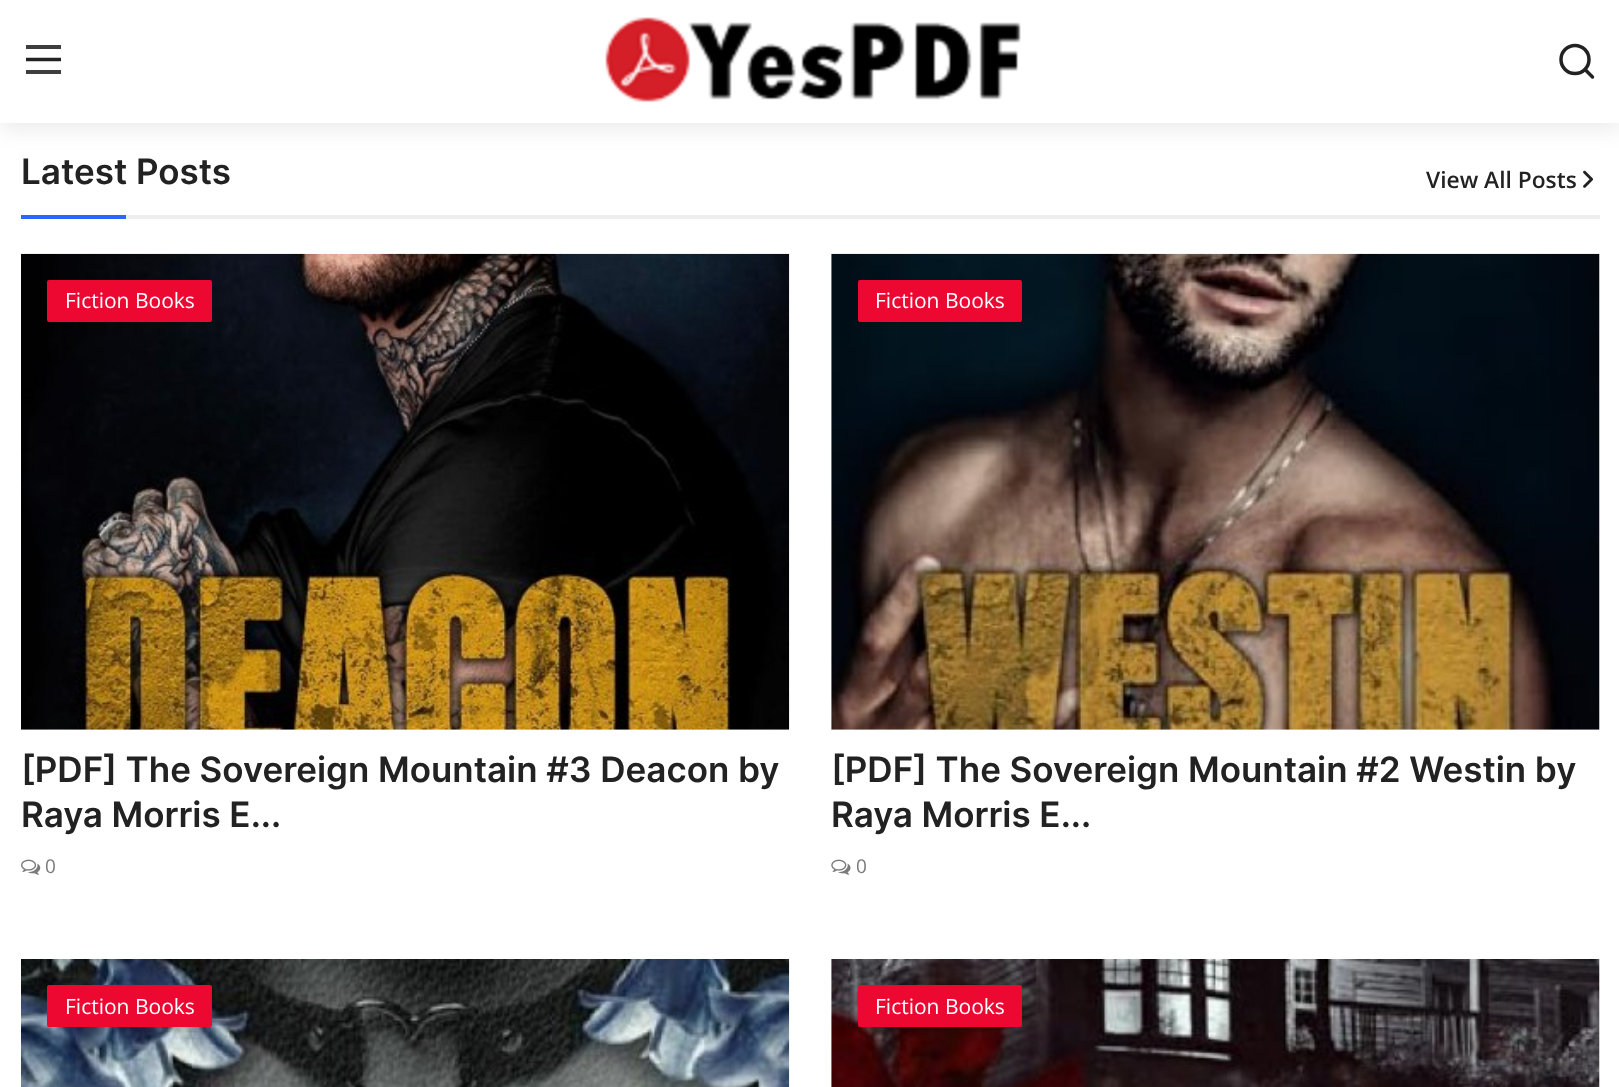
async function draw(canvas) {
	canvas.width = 1619;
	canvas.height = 1087;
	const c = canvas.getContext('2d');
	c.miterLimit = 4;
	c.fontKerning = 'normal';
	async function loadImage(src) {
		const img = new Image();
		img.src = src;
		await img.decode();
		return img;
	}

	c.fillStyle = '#fff';
	c.fillRect(0, 0, 1619, 1087);
	c.fillStyle = '#0000001a';
	c.filter = 'blur(13px)';
	c.beginPath();
	c.rect(0, 4, 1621, 122);
	c.fill();
	c.filter = 'none';
	c.fillStyle = '#fff';
	c.fillRect(0, 0, 1619, 123);
	c.fillStyle = '#3e3e3e';
	c.fillRect(26, 45, 35, 4);
	c.beginPath();
	c.moveTo(26, 59.5);
	c.lineTo(61, 59.5);
	c.strokeStyle = '#222';
	c.lineWidth = 3.5;
	c.stroke();
	c.fillRect(26, 70, 35, 4);
	c.drawImage(await loadImage('img1.png'), 605, 17, 416, 86);
	c.beginPath();
	c.arc(1575, 59.5, 14, 0, 2 * Math.PI);
	c.stroke();
	c.beginPath();
	c.moveTo(1592.5, 77);
	c.lineTo(1585, 69.5);
	c.lineCap = 'round';
	c.lineJoin = 'round';
	c.stroke();
	c.fillStyle = '#eee';
	c.fillRect(126, 215, 1474, 4);
	c.font = '600 35px Inter';
	c.fillStyle = '#222';
	c.fillText('Latest Posts', 21, 184);
	c.font = '600 22.75px Open Sans';
	c.fillText('View All Posts', 1426, 188);
	c.drawImage(await loadImage('img2.png'), 1583, 170, 10, 18);
	c.fillStyle = '#2d65fe';
	c.fillRect(21, 215, 105, 4);
	c.fillStyle = '#fafafa';
	c.fillRect(21, 729, 768, 1);
	c.drawImage(await loadImage('img3.png'), 21, 253, 769, 477);
	c.fillStyle = '#ed0831';
	c.beginPath();
	c.roundRect(47, 280, 165, 42, 2);
	c.fill();
	c.font = '21px Open Sans';
	c.fillStyle = '#fff';
	c.fillText('Fiction Books', 65, 308);
	c.font = '600 35px Inter';
	c.fillStyle = '#222';
	c.fillText('[PDF] The Sovereign Mountain #3 Deacon by', 21, 782);
	c.fillText('Raya Morris E...', 21, 827);
	c.drawImage(await loadImage('img4.png'), 21, 859, 20, 16);
	c.font = '19px Open Sans';
	c.fillStyle = '#7a7a7a';
	c.fillText('0', 45, 873);
	c.fillStyle = '#fafafa';
	c.fillRect(831, 254, 769, 476);
	c.drawImage(await loadImage('img5.png'), 831, 253, 769, 477);
	c.fillStyle = '#ed0831';
	c.beginPath();
	c.roundRect(858, 280, 164, 42, 2);
	c.fill();
	c.font = '21px Open Sans';
	c.fillStyle = '#fff';
	c.fillText('Fiction Books', 875, 308);
	c.font = '600 35px Inter';
	c.fillStyle = '#222';
	c.fillText('[PDF] The Sovereign Mountain #2 Westin by', 831, 782);
	c.fillText('Raya Morris E...', 831, 827);
	c.drawImage(await loadImage('img6.png'), 831, 859, 20, 16);
	c.font = '19px Open Sans';
	c.fillStyle = '#7a7a7a';
	c.fillText('0', 856, 873);
	c.drawImage(await loadImage('img7.png'), 21, 959, 769, 128);
	c.fillStyle = '#ed0831';
	c.beginPath();
	c.roundRect(47, 985, 165, 42, 2);
	c.fill();
	c.font = '21px Open Sans';
	c.fillStyle = '#fff';
	c.fillText('Fiction Books', 65, 1014);
	c.fillStyle = '#fafafa';
	c.fillRect(831, 959, 769, 128);
	c.drawImage(await loadImage('img8.png'), 831, 959, 769, 128);
	c.fillStyle = '#ed0831';
	c.beginPath();
	c.roundRect(858, 985, 164, 42, 2);
	c.fill();
	c.fillStyle = '#fff';
	c.fillText('Fiction Books', 875, 1014);
}

draw(document.querySelector('canvas'));
